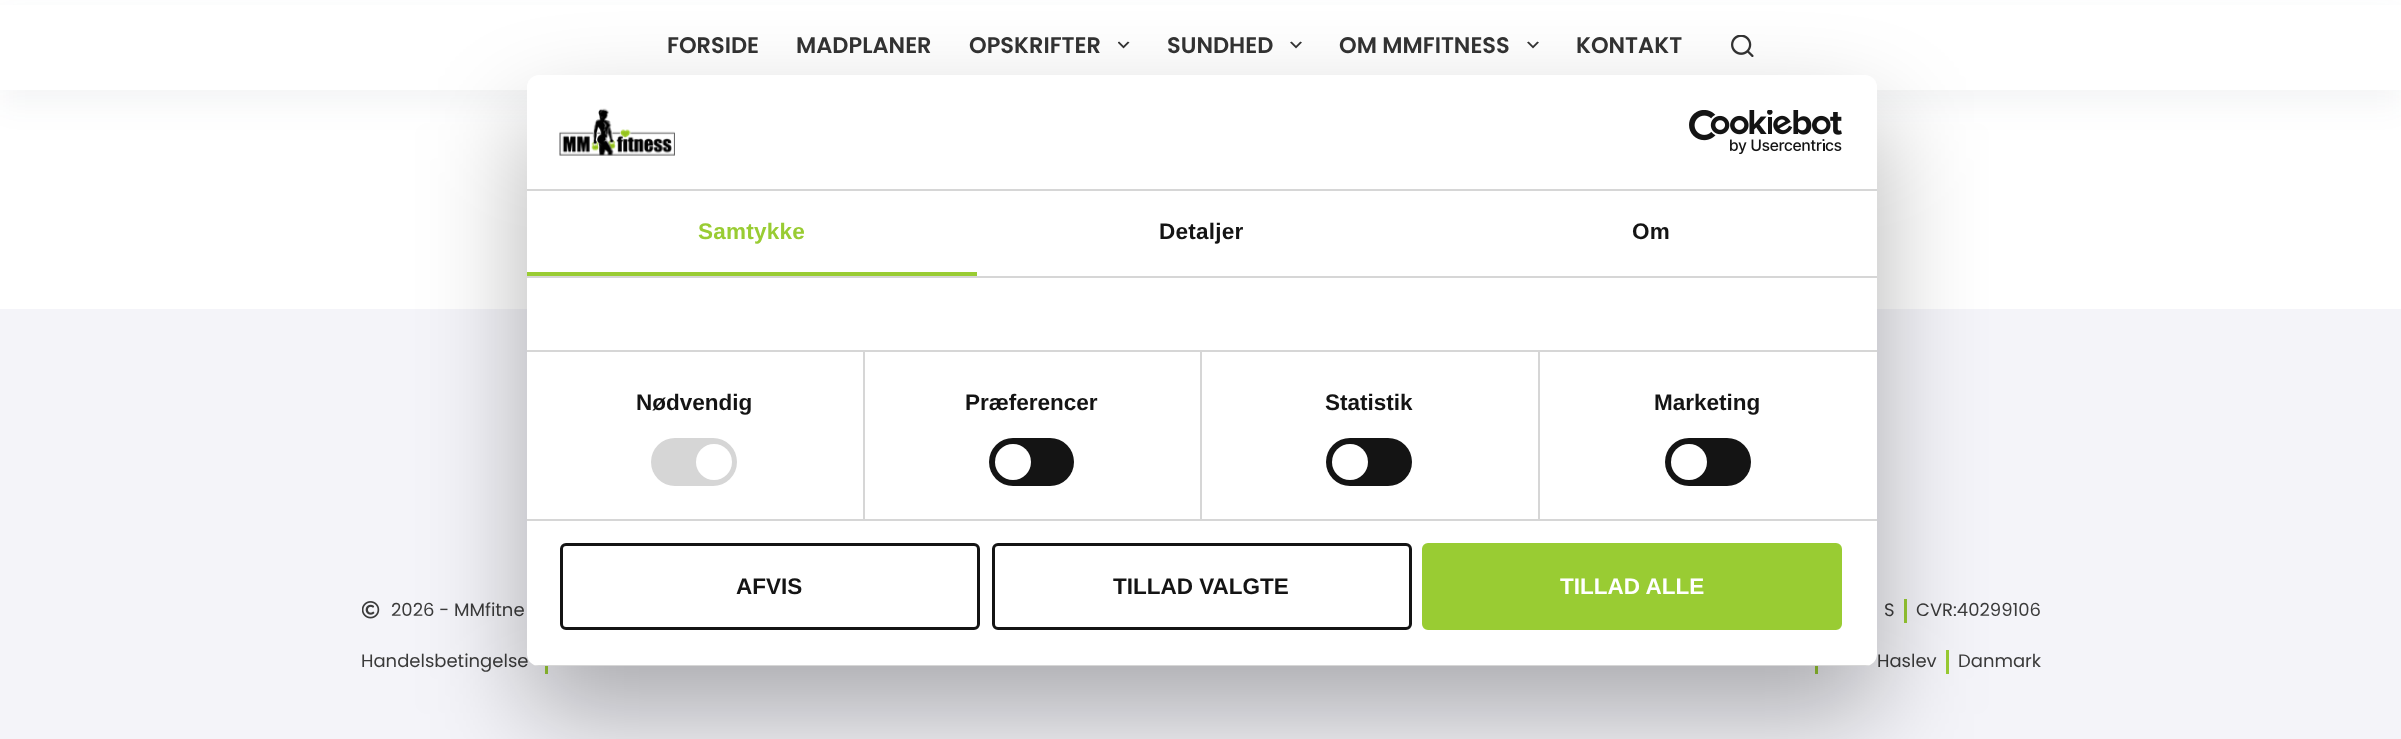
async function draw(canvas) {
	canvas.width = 2401;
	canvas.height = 739;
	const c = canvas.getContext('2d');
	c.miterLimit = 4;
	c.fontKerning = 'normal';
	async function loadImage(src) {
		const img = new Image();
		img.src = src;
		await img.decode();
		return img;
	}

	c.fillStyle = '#fff';
	c.fillRect(0, 0, 2401, 739);
	c.fillStyle = '#2c3e500d';
	c.filter = 'blur(15px)';
	c.beginPath();
	c.rect(0, 15, 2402, 90);
	c.fill();
	c.filter = 'none';
	c.fillStyle = '#fff';
	c.fillRect(0, 5, 2401, 85);
	c.font = '600 22.5px Poppins';
	c.fillStyle = '#333';
	for (const [text, x, y] of [
		['FORSIDE', 667, 53],
		['MADPLANER', 796, 53],
		['OPSKRIFTER', 969, 53],
	]) {
		c.fillText(text, x, y);
	}
	c.drawImage(await loadImage('img1.png'), 1118, 41, 12, 8);
	c.fillText('SUNDHED', 1167, 53);
	c.drawImage(await loadImage('img2.png'), 1290, 41, 12, 8);
	c.fillText('OM MMFITNESS', 1339, 53);
	c.drawImage(await loadImage('img2.png'), 1527, 41, 12, 8);
	c.fillText('KONTAKT', 1576, 53);
	c.drawImage(await loadImage('img3.png'), 1731, 35, 23, 22);
	c.fillStyle = '#f4f4f9';
	c.fillRect(0, 309, 2401, 430);
	c.drawImage(await loadImage('img4.png'), 362, 601, 18, 18);
	c.font = '18px Poppins';
	c.fillStyle = '#3b3b3b';
	c.fillText('2026 - MMfitne', 391, 616);
	c.fillText('Handelsbetingelse', 361, 667);
	c.fillStyle = '#9c3';
	c.fillRect(545, 666, 3, 8);
	c.fillStyle = '#3b3b3b';
	c.fillText('S', 1884, 616);
	c.fillStyle = '#9c3';
	c.fillRect(1904, 599, 3, 24);
	c.fillStyle = '#3b3b3b';
	c.fillText('CVR:40299106', 1916, 616);
	c.fillText('Haslev', 1877, 667);
	c.fillStyle = '#9c3';
	c.fillRect(1946, 650, 3, 24);
	c.fillStyle = '#3b3b3b';
	c.fillText('Danmark', 1958, 667);
	c.fillStyle = '#9c3';
	c.fillRect(1815, 666, 3, 8);
	c.fillStyle = '#0000004d';
	c.filter = 'blur(51px)';
	c.beginPath();
	c.roundRect(527, 123, 1350, 591, 12);
	c.fill();
	c.filter = 'none';
	c.fillStyle = '#fff';
	c.beginPath();
	c.roundRect(527, 75, 1350, 591, 12);
	c.fill();
	c.fillStyle = '#d6d6d6';
	c.fillRect(527, 189, 1350, 2);
	c.drawImage(await loadImage('img5.png'), 559, 108, 116, 48);
	c.drawImage(await loadImage('img6.png'), 1689, 110, 153, 45);
	c.fillRect(527, 276, 1350, 2);
	c.fillStyle = '#9c3';
	c.fillRect(527, 272, 450, 4);
	c.letterSpacing = '0.25px';
	c.font = 'bold 22.5px Liberation Sans';
	c.fillText('Samtykke', 698, 239);
	c.fillStyle = '#141414';
	c.fillText('Detaljer', 1159, 239);
	c.fillText('Om', 1632, 239);
	for (const [x, y, w, h, color] of [
		[863, 351, 2, 168, '#d6d6d6'],
		[1200, 351, 2, 168, '#d6d6d6'],
		[1538, 351, 2, 168, '#d6d6d6'],
		[527, 350, 1350, 2, '#d6d6d6'],
		[527, 519, 1350, 2, '#d6d6d6'],
	]) {
		c.fillStyle = color;
		c.fillRect(x, y, w, h);
	}
	c.letterSpacing = '0px';
	c.fillStyle = '#141414';
	c.fillText('Nødvendig', 636, 410);
	c.fillStyle = '#d6d6d6';
	c.beginPath();
	c.roundRect(651, 438, 86, 48, 24);
	c.fill();
	c.fillStyle = '#fff';
	c.beginPath();
	c.arc(714, 462, 18, 0, 2 * Math.PI);
	c.fill();
	c.fillStyle = '#141414';
	c.fillText('Præferencer', 965, 410);
	c.beginPath();
	c.roundRect(989, 438, 85, 48, 24);
	c.fill();
	c.fillStyle = '#fff';
	c.beginPath();
	c.arc(1013, 462, 18, 0, 2 * Math.PI);
	c.fill();
	c.fillStyle = '#141414';
	c.fillText('Statistik', 1325, 410);
	c.beginPath();
	c.roundRect(1326, 438, 86, 48, 24);
	c.fill();
	c.fillStyle = '#fff';
	c.beginPath();
	c.arc(1350, 462, 18, 0, 2 * Math.PI);
	c.fill();
	c.fillStyle = '#141414';
	c.fillText('Marketing', 1654, 410);
	c.beginPath();
	c.roundRect(1665, 438, 86, 48, 24);
	c.fill();
	c.fillStyle = '#fff';
	c.beginPath();
	c.arc(1689, 462, 18, 0, 2 * Math.PI);
	c.fill();
	c.save();
	c.beginPath();
	c.roundRect(527, 75, 1350, 591, 12);
	c.clip();
	c.fillStyle = '#d6d6d6';
	c.fillRect(527, 665, 1350, 1);
	c.restore();
	c.beginPath();
	c.roundRect(561.5, 544.5, 417, 84, 4.5);
	c.strokeStyle = '#141414';
	c.lineWidth = 3;
	c.stroke();
	c.fillStyle = '#141414';
	c.fillText('AFVIS', 736, 594);
	c.beginPath();
	c.roundRect(993.5, 544.5, 417, 84, 4.5);
	c.stroke();
	c.fillText('TILLAD VALGTE', 1113, 594);
	c.fillStyle = '#9c3';
	c.beginPath();
	c.roundRect(1423.5, 544.5, 417, 84, 4.5);
	c.fill();
	c.strokeStyle = '#9c3';
	c.stroke();
	c.fillStyle = '#fff';
	c.fillText('TILLAD ALLE', 1560, 594);
}

draw(document.querySelector('canvas'));
